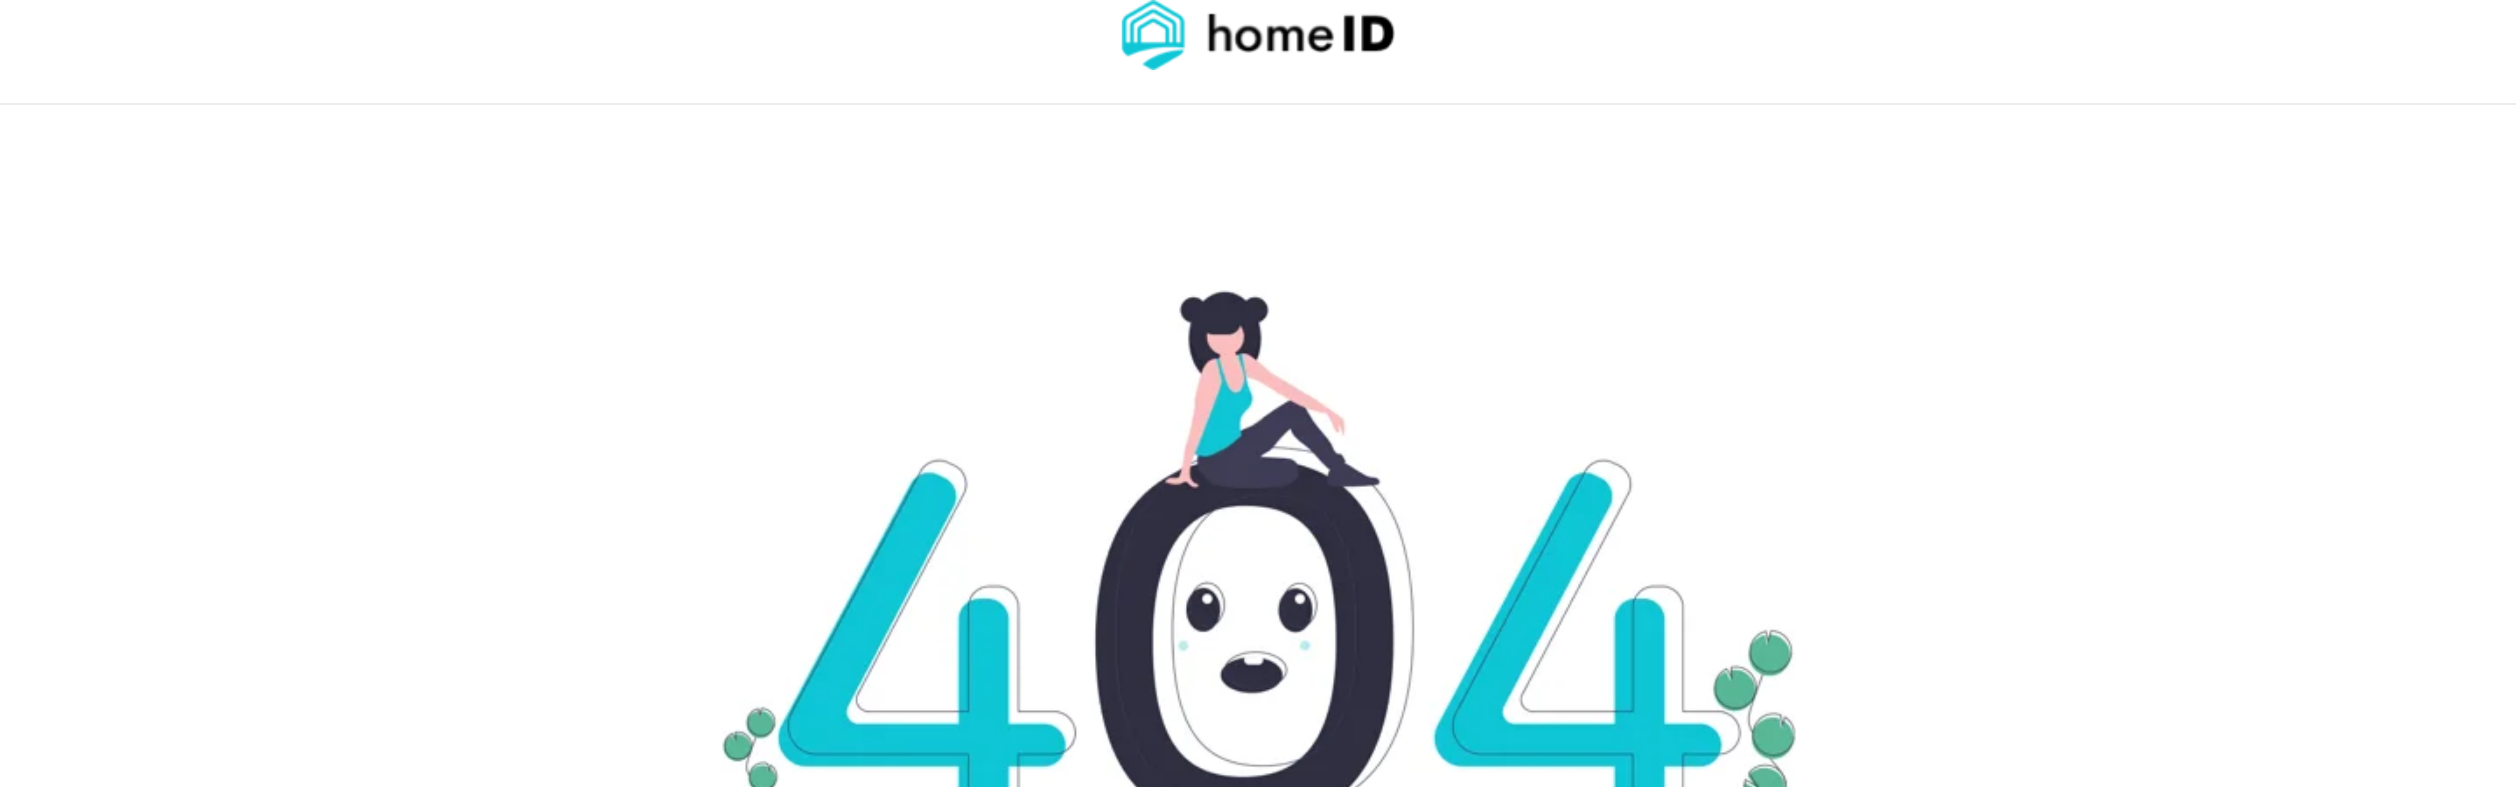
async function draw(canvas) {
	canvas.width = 2516;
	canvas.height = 787;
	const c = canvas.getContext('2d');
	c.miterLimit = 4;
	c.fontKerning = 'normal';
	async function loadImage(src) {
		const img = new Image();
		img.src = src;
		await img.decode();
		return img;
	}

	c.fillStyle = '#fff';
	c.fillRect(0, 0, 2516, 787);
	c.drawImage(await loadImage('img1.png'), 1121, 0, 274, 70);
	c.fillStyle = '#ededed';
	c.fillRect(0, 103, 2516, 2);
	c.drawImage(await loadImage('img2.png'), 721, 289, 1075, 498);
}

draw(document.querySelector('canvas'));
